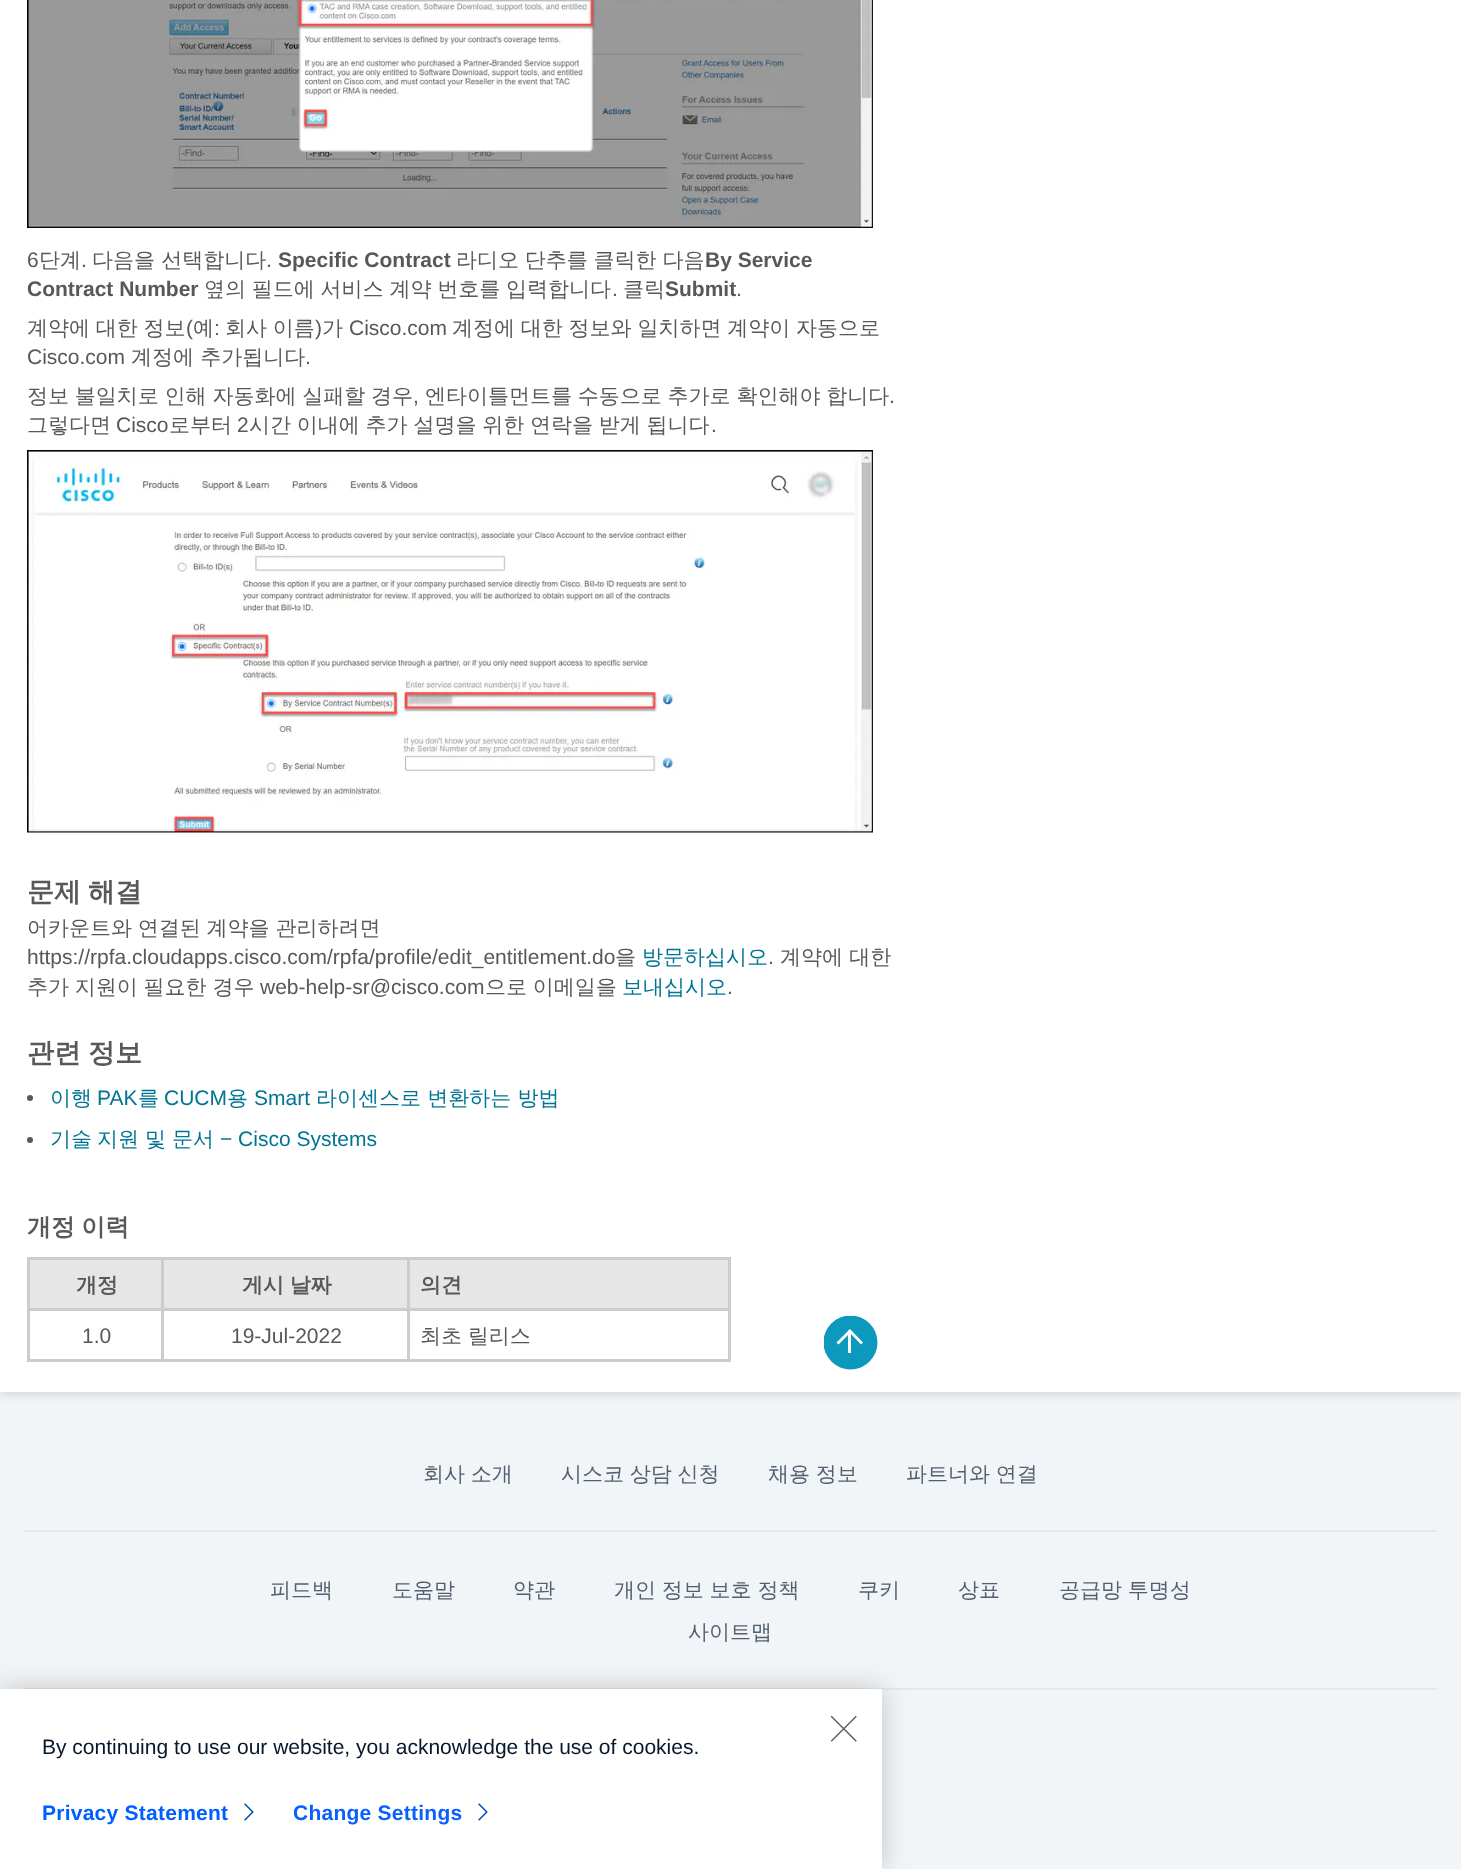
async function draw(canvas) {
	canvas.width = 1461;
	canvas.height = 1869;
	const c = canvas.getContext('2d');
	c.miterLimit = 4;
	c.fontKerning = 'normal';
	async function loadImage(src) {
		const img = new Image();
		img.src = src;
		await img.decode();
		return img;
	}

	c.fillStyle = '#f2f5f7';
	c.fillRect(0, 0, 1461, 1869);
	c.fillStyle = '#0000001f';
	c.filter = 'blur(4px)';
	c.beginPath();
	c.rect(0, -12, 1461, 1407);
	c.fill();
	c.filter = 'none';
	c.fillStyle = '#fff';
	c.fillRect(0, 0, 1461, 1392);
	c.drawImage(await loadImage('img1.png'), 27, 0, 846, 228);
	c.font = '21px Liberation Sans';
	c.fillStyle = '#58585b';
	c.fillText('6', 27, 267);
	c.font = '500 21px WenQuanYi Zen Hei';
	c.fillText('단계', 39, 267);
	c.font = '21px Liberation Sans';
	c.fillText('.', 81, 267);
	c.font = '500 21px WenQuanYi Zen Hei';
	c.fillText('다음을 선택합니다', 92, 267);
	c.font = '21px Liberation Sans';
	c.fillText('.', 266, 267);
	c.font = 'bold 21px Liberation Sans';
	c.fillText('Specific Contract', 278, 267);
	c.wordSpacing = '-0.5px';
	c.font = '500 21px WenQuanYi Zen Hei';
	c.fillText('라디오 단추를 클릭한 다음', 456, 267);
	c.wordSpacing = '0px';
	c.font = 'bold 21px Liberation Sans';
	c.fillText('By Service', 705, 267);
	c.fillText('Contract Number', 27, 296);
	c.wordSpacing = '-0.5px';
	c.font = '500 21px WenQuanYi Zen Hei';
	c.fillText('옆의 필드에 서비스 계약 번호를 입력합니다', 204, 296);
	c.wordSpacing = '0px';
	c.font = '21px Liberation Sans';
	c.fillText('.', 612, 296);
	c.font = '500 21px WenQuanYi Zen Hei';
	c.fillText('클릭', 623, 296);
	c.font = 'bold 21px Liberation Sans';
	c.fillText('Submit', 665, 296);
	c.font = '21px Liberation Sans';
	c.fillText('.', 736, 296);
	c.wordSpacing = '-0.5px';
	c.font = '500 21px WenQuanYi Zen Hei';
	c.fillText('계약에 대한 정보', 27, 335);
	c.wordSpacing = '0px';
	c.font = '21px Liberation Sans';
	c.fillText('(', 186, 335);
	c.font = '500 21px WenQuanYi Zen Hei';
	c.fillText('예', 193, 335);
	c.font = '21px Liberation Sans';
	c.fillText(':', 214, 335);
	c.wordSpacing = '-0.5px';
	c.font = '500 21px WenQuanYi Zen Hei';
	c.fillText('회사 이름', 225, 335);
	c.wordSpacing = '0px';
	c.font = '21px Liberation Sans';
	c.fillText(')', 315, 335);
	c.font = '500 21px WenQuanYi Zen Hei';
	c.fillText('가', 322, 335);
	c.font = '21px Liberation Sans';
	c.fillText('Cisco.com', 349, 335);
	c.wordSpacing = '-0.5px';
	c.font = '500 21px WenQuanYi Zen Hei';
	c.fillText('계정에 대한 정보와 일치하면 계약이 자동으로', 452, 335);
	c.wordSpacing = '0px';
	c.font = '21px Liberation Sans';
	c.fillText('Cisco.com', 27, 364);
	c.font = '500 21px WenQuanYi Zen Hei';
	c.fillText('계정에 추가됩니다', 131, 364);
	c.font = '21px Liberation Sans';
	c.fillText('.', 305, 364);
	c.wordSpacing = '-0.5px';
	c.font = '500 21px WenQuanYi Zen Hei';
	c.fillText('정보 불일치로 인해 자동화에 실패할 경우', 27, 403);
	c.wordSpacing = '0px';
	c.font = '21px Liberation Sans';
	c.fillText(',', 413, 403);
	c.wordSpacing = '-0.5px';
	c.font = '500 21px WenQuanYi Zen Hei';
	c.fillText('엔타이틀먼트를 수동으로 추가로 확인해야 합니다', 425, 403);
	c.wordSpacing = '0px';
	c.font = '21px Liberation Sans';
	c.fillText('.', 889, 403);
	c.font = '500 21px WenQuanYi Zen Hei';
	c.fillText('그렇다면', 27, 432);
	c.font = '21px Liberation Sans';
	c.fillText('Cisco', 116, 432);
	c.font = '500 21px WenQuanYi Zen Hei';
	c.fillText('로부터', 169, 432);
	c.font = '21px Liberation Sans';
	c.fillText('2', 237, 432);
	c.wordSpacing = '-0.5px';
	c.font = '500 21px WenQuanYi Zen Hei';
	c.fillText('시간 이내에 추가 설명을 위한 연락을 받게 됩니다', 249, 432);
	c.wordSpacing = '0px';
	c.font = '21px Liberation Sans';
	c.fillText('.', 711, 432);
	c.drawImage(await loadImage('img2.png'), 27, 450, 846, 383);
	c.wordSpacing = '-1px';
	c.font = 'bold 27px WenQuanYi Zen Hei';
	c.fillText('문제 해결', 27, 901);
	c.wordSpacing = '-0.5px';
	c.font = '500 21px WenQuanYi Zen Hei';
	c.fillText('어카운트와 연결된 계약을 관리하려면', 27, 935);
	c.wordSpacing = '0px';
	c.font = '21px Liberation Sans';
	c.fillText('https://rpfa.cloudapps.cisco.com/rpfa/profile/edit_entitlement.do', 27, 964);
	c.font = '500 21px WenQuanYi Zen Hei';
	c.fillText('을', 615, 964);
	c.fillStyle = '#007493';
	c.fillText('방문하십시오', 642, 964);
	c.font = '21px Liberation Sans';
	c.fillStyle = '#58585b';
	c.fillText('.', 768, 964);
	c.font = '500 21px WenQuanYi Zen Hei';
	c.fillText('계약에 대한', 780, 964);
	c.wordSpacing = '-0.5px';
	c.fillText('추가 지원이 필요한 경우', 27, 994);
	c.wordSpacing = '0px';
	c.font = '21px Liberation Sans';
	c.fillText('web-help-sr@cisco.com', 260, 994);
	c.wordSpacing = '-0.5px';
	c.font = '500 21px WenQuanYi Zen Hei';
	c.fillText('으로 이메일을', 485, 994);
	c.wordSpacing = '0px';
	c.fillStyle = '#007493';
	c.fillText('보내십시오', 622, 994);
	c.font = '21px Liberation Sans';
	c.fillStyle = '#58585b';
	c.fillText('.', 727, 994);
	c.wordSpacing = '-1px';
	c.font = 'bold 27px WenQuanYi Zen Hei';
	c.fillText('관련 정보', 27, 1062);
	c.beginPath();
	c.arc(30, 1098, 3, 0, 2 * Math.PI);
	c.fill();
	c.wordSpacing = '0px';
	c.font = '500 21px WenQuanYi Zen Hei';
	c.fillStyle = '#007493';
	c.fillText('이행', 50, 1105);
	c.font = '21px Liberation Sans';
	c.fillText('PAK', 97, 1105);
	c.font = '500 21px WenQuanYi Zen Hei';
	c.fillText('를', 138, 1105);
	c.font = '21px Liberation Sans';
	c.fillText('CUCM', 164, 1105);
	c.font = '500 21px WenQuanYi Zen Hei';
	c.fillText('용', 227, 1105);
	c.font = '21px Liberation Sans';
	c.fillText('Smart', 254, 1105);
	c.font = '500 21px WenQuanYi Zen Hei';
	c.fillText('라이센스로 변환하는 방법', 316, 1105);
	c.fillStyle = '#58585b';
	c.beginPath();
	c.arc(30, 1140, 3, 0, 2 * Math.PI);
	c.fill();
	c.fillStyle = '#007493';
	for (const [text, x, y] of [
		['기술', 50, 1146],
		['지원', 97, 1146],
		['및', 145, 1146],
		['문서', 172, 1146],
	]) {
		c.fillText(text, x, y);
	}
	c.font = '21px Liberation Sans';
	c.fillText('− Cisco Systems', 220, 1146);
	c.wordSpacing = '-1px';
	c.font = 'bold 24px WenQuanYi Zen Hei';
	c.fillStyle = '#58585b';
	c.fillText('개정 이력', 27, 1235);
	for (const [x, y, w, h, color] of [
		[30, 1260, 131, 48, '#e6e6e6'],
		[407, 1257, 324, 3, '#ccc'],
		[407, 1308, 324, 3, '#ccc'],
		[728, 1308, 3, 54, '#ccc'],
		[407, 1359, 324, 3, '#ccc'],
		[407, 1308, 3, 54, '#ccc'],
		[161, 1308, 249, 3, '#ccc'],
		[407, 1257, 3, 54, '#ccc'],
		[161, 1257, 249, 3, '#ccc'],
		[161, 1359, 249, 3, '#ccc'],
		[161, 1308, 3, 54, '#ccc'],
		[27, 1308, 137, 3, '#ccc'],
		[161, 1257, 3, 54, '#ccc'],
		[27, 1257, 137, 3, '#ccc'],
		[27, 1359, 137, 3, '#ccc'],
		[27, 1308, 3, 54, '#ccc'],
		[27, 1257, 3, 54, '#ccc'],
	]) {
		c.fillStyle = color;
		c.fillRect(x, y, w, h);
	}
	c.wordSpacing = '0px';
	c.font = 'bold 21px WenQuanYi Zen Hei';
	c.fillStyle = '#58585b';
	c.fillText('개정', 76, 1292);
	c.fillStyle = '#e6e6e6';
	c.fillRect(164, 1260, 243, 48);
	c.wordSpacing = '-0.5px';
	c.fillStyle = '#58585b';
	c.fillText('게시 날짜', 242, 1292);
	c.fillStyle = '#e6e6e6';
	c.fillRect(410, 1260, 318, 48);
	c.fillStyle = '#ccc';
	c.fillRect(728, 1257, 3, 54);
	c.wordSpacing = '0px';
	c.fillStyle = '#58585b';
	c.fillText('의견', 420, 1292);
	c.font = '21px Liberation Sans';
	c.fillText('1.0', 82, 1343);
	c.fillText('19-Jul-2022', 231, 1343);
	c.wordSpacing = '-0.5px';
	c.font = '500 21px WenQuanYi Zen Hei';
	c.fillText('최초 릴리스', 420, 1343);
	c.save();
	c.beginPath();
	c.rect(824, 1316, 54, 54);
	c.clip();
	c.fillStyle = '#0d98be';
	c.beginPath();
	c.arc(850.5, 1342.5, 27, 0, 2 * Math.PI);
	c.fill();
	c.restore();
	c.save();
	c.beginPath();
	c.rect(824, 1316, 51, 52);
	c.clip();
	c.fillStyle = '#0d98be';
	c.beginPath();
	c.arc(850, 1342, 26, 0, 2 * Math.PI);
	c.fill();
	c.restore();
	c.fillStyle = '#fff';
	c.fillRect(848, 1330, 3, 23);
	c.beginPath();
	c.moveTo(838.5, 1344.5);
	c.lineTo(836.5, 1342.5);
	c.lineTo(850, 1329);
	c.lineTo(863, 1342.5);
	c.lineTo(861, 1344.5);
	c.lineTo(850, 1333);
	c.closePath();
	c.fill();
	c.fillStyle = '#536070';
	for (const [text, x, y] of [
		['회사 소개', 423, 1481],
		['시스코 상담 신청', 561, 1481],
		['채용 정보', 768, 1481],
		['파트너와 연결', 906, 1481],
	]) {
		c.fillText(text, x, y);
	}
	c.fillStyle = '#e6e7e8';
	c.fillRect(24, 1530, 1413, 2);
	c.wordSpacing = '0px';
	c.fillStyle = '#536070';
	for (const [text, x, y] of [
		['피드백', 270, 1597],
		['도움말', 392, 1597],
		['약관', 513, 1597],
	]) {
		c.fillText(text, x, y);
	}
	c.wordSpacing = '-0.5px';
	c.fillText('개인 정보 보호 정책', 614, 1597);
	c.wordSpacing = '0px';
	c.fillText('쿠키', 858, 1597);
	c.fillText('상표', 958, 1597);
	c.wordSpacing = '-0.5px';
	c.fillText('공급망 투명성', 1059, 1597);
	c.wordSpacing = '0px';
	c.fillText('사이트맵', 688, 1639);
	c.fillStyle = '#e6e7e8';
	c.fillRect(24, 1688, 1413, 2);
	c.fillStyle = '#00000033';
	c.filter = 'blur(13.5px)';
	c.beginPath();
	c.rect(0, 1689, 882, 180);
	c.fill();
	c.filter = 'none';
	c.fillStyle = '#fff';
	c.fillRect(0, 1689, 882, 180);
	c.drawImage(await loadImage('img3.png'), 830, 1715, 27, 27);
	c.font = '21px Liberation Sans';
	c.fillStyle = '#07182d';
	c.fillText('By continuing to use our website, you acknowledge the use of cookies.', 42, 1754);
	c.letterSpacing = '0.25px';
	c.font = 'bold 21px Liberation Sans';
	c.fillStyle = '#0060ff';
	c.fillText('Privacy Statement', 42, 1820);
	c.drawImage(await loadImage('img4.png'), 244, 1803, 10, 18);
	c.fillStyle = '#0a60ff';
	c.fillText('Change Settings', 293, 1820);
	c.drawImage(await loadImage('img4.png'), 478, 1803, 10, 18);
}

draw(document.querySelector('canvas'));
